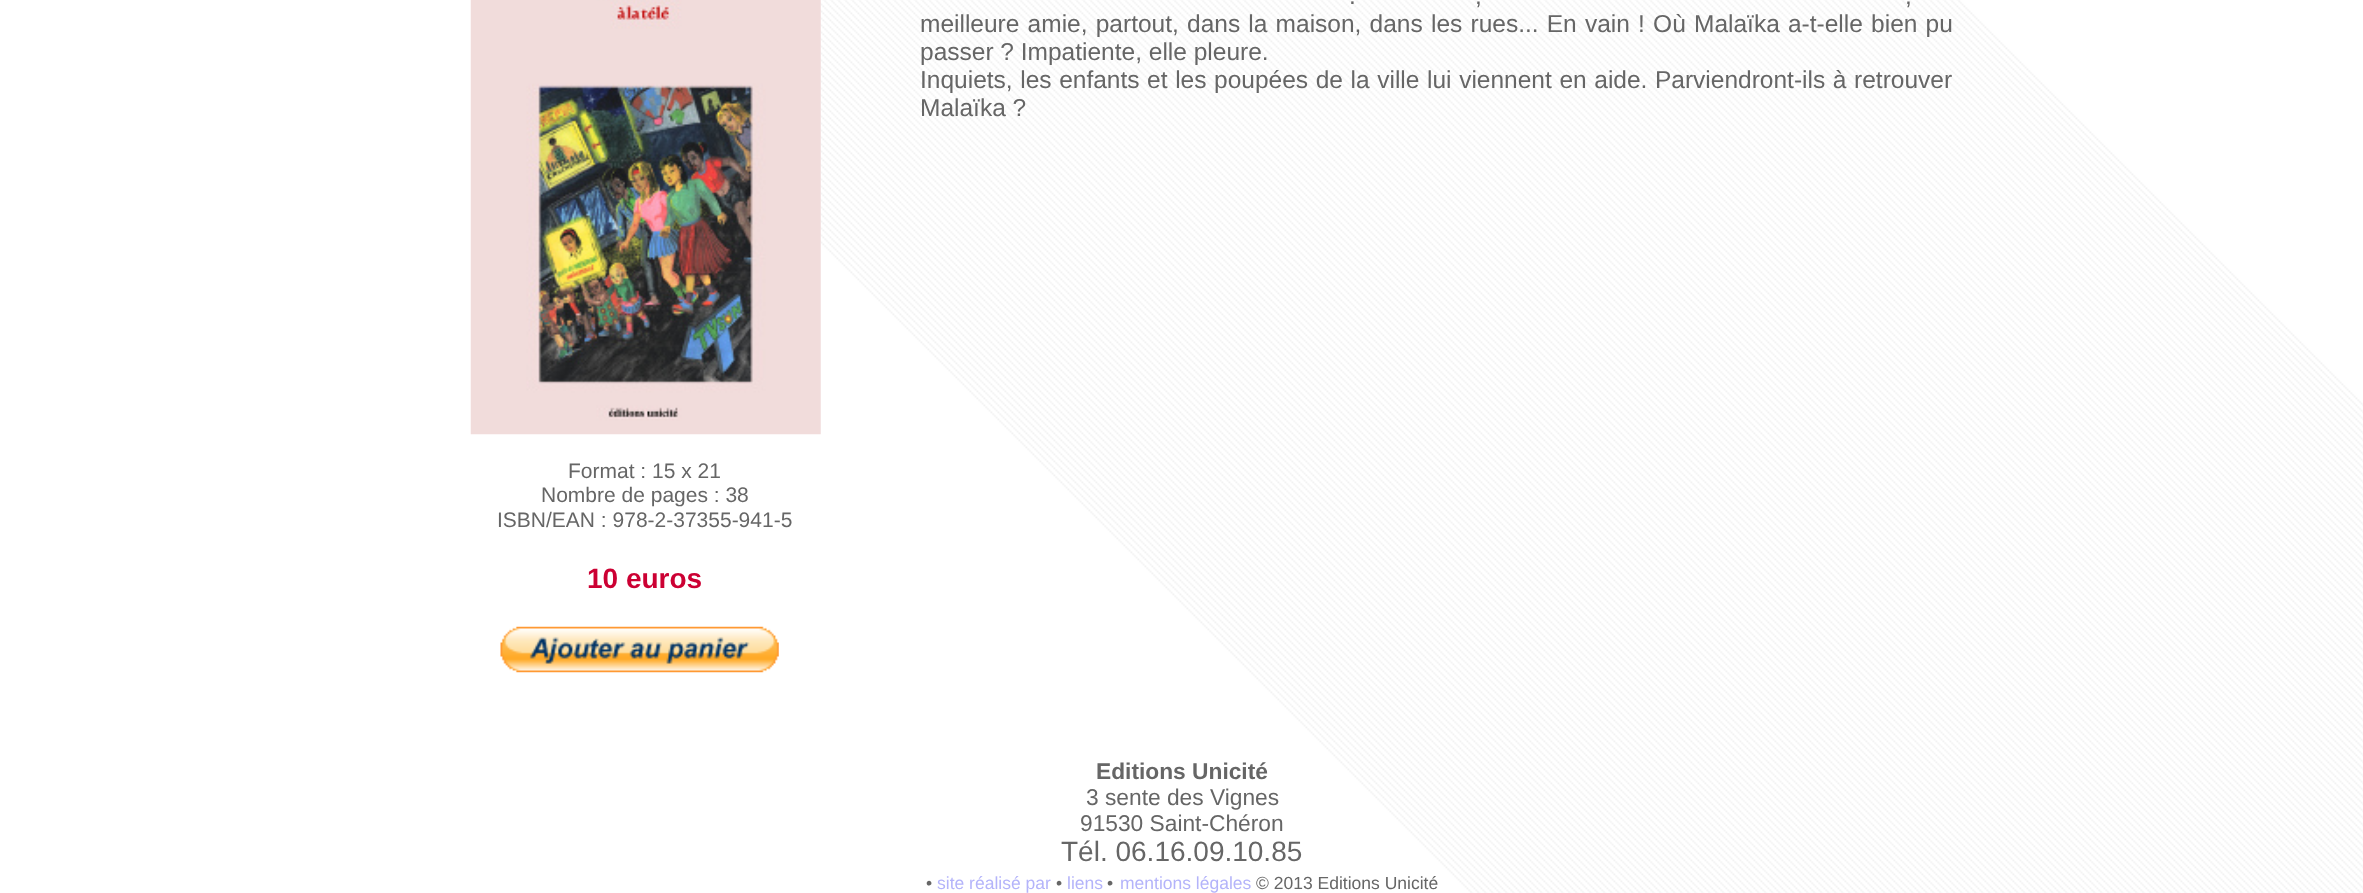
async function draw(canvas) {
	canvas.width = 2363;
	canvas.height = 893;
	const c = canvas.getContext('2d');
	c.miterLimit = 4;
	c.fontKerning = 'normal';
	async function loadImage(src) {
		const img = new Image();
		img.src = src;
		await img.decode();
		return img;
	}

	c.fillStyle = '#fff';
	c.fillRect(0, 0, 2363, 893);
	c.drawImage(await loadImage('img1.png'), 820, 0, 1543, 893);
	c.wordSpacing = '7px';
	c.font = '24.5px Liberation Sans';
	c.fillStyle = '#666';
	for (const [text, x, y] of [
		['.', 1349, 4],
		[',', 1475, 4],
		[',', 1905, 4],
	]) {
		c.fillText(text, x, y);
	}
	c.wordSpacing = '1.4px';
	c.fillText('meilleure amie, partout, dans la maison, dans les rues... En vain ! Où Malaïka a-t-elle bien pu', 920, 32);
	c.wordSpacing = '0px';
	c.fillText('passer ? Impatiente, elle pleure.', 920, 60);
	c.wordSpacing = '0.8px';
	c.fillText('Inquiets, les enfants et les poupées de la ville lui viennent en aide. Parviendront-ils à retrouver', 920, 88);
	c.wordSpacing = '0px';
	c.fillText('Malaïka ?', 920, 116);
	c.drawImage(await loadImage('img2.png'), 470, 0, 351, 435);
	c.font = '21px Liberation Sans';
	for (const [text, x, y] of [
		['Format : 15 x 21', 568, 478],
		['Nombre de pages : 38', 541, 502],
		['ISBN/EAN : 978-2-37355-941-5', 497, 527],
	]) {
		c.fillText(text, x, y);
	}
	c.font = 'bold 28px Liberation Sans';
	c.fillStyle = '#c03';
	c.fillText('10 euros', 587, 588);
	c.drawImage(await loadImage('img3.png'), 500, 626, 279, 47);
	c.font = 'bold 22.75px Liberation Sans';
	c.fillStyle = '#666';
	c.fillText('Editions Unicité', 1096, 779);
	c.font = '22.75px Liberation Sans';
	c.fillText('3 sente des Vignes', 1086, 805);
	c.fillText('91530 Saint-Chéron', 1080, 831);
	c.font = '28px Liberation Sans';
	c.fillText('Tél. 06.16.09.10.85', 1061, 861);
	c.font = '17.5px Liberation Sans';
	c.fillText('•', 926, 889);
	c.fillStyle = '#b4b4fa';
	c.fillText('site réalisé par', 937, 889);
	c.fillStyle = '#666';
	c.fillText('•', 1056, 889);
	c.fillStyle = '#b4b4fa';
	c.fillText('liens', 1067, 889);
	c.fillStyle = '#666';
	c.fillText('•', 1107, 889);
	c.fillStyle = '#b4b4fa';
	c.fillText('mentions légales', 1120, 889);
	c.fillStyle = '#666';
	c.fillText('© 2013 Editions Unicité', 1256, 889);
}

draw(document.querySelector('canvas'));
